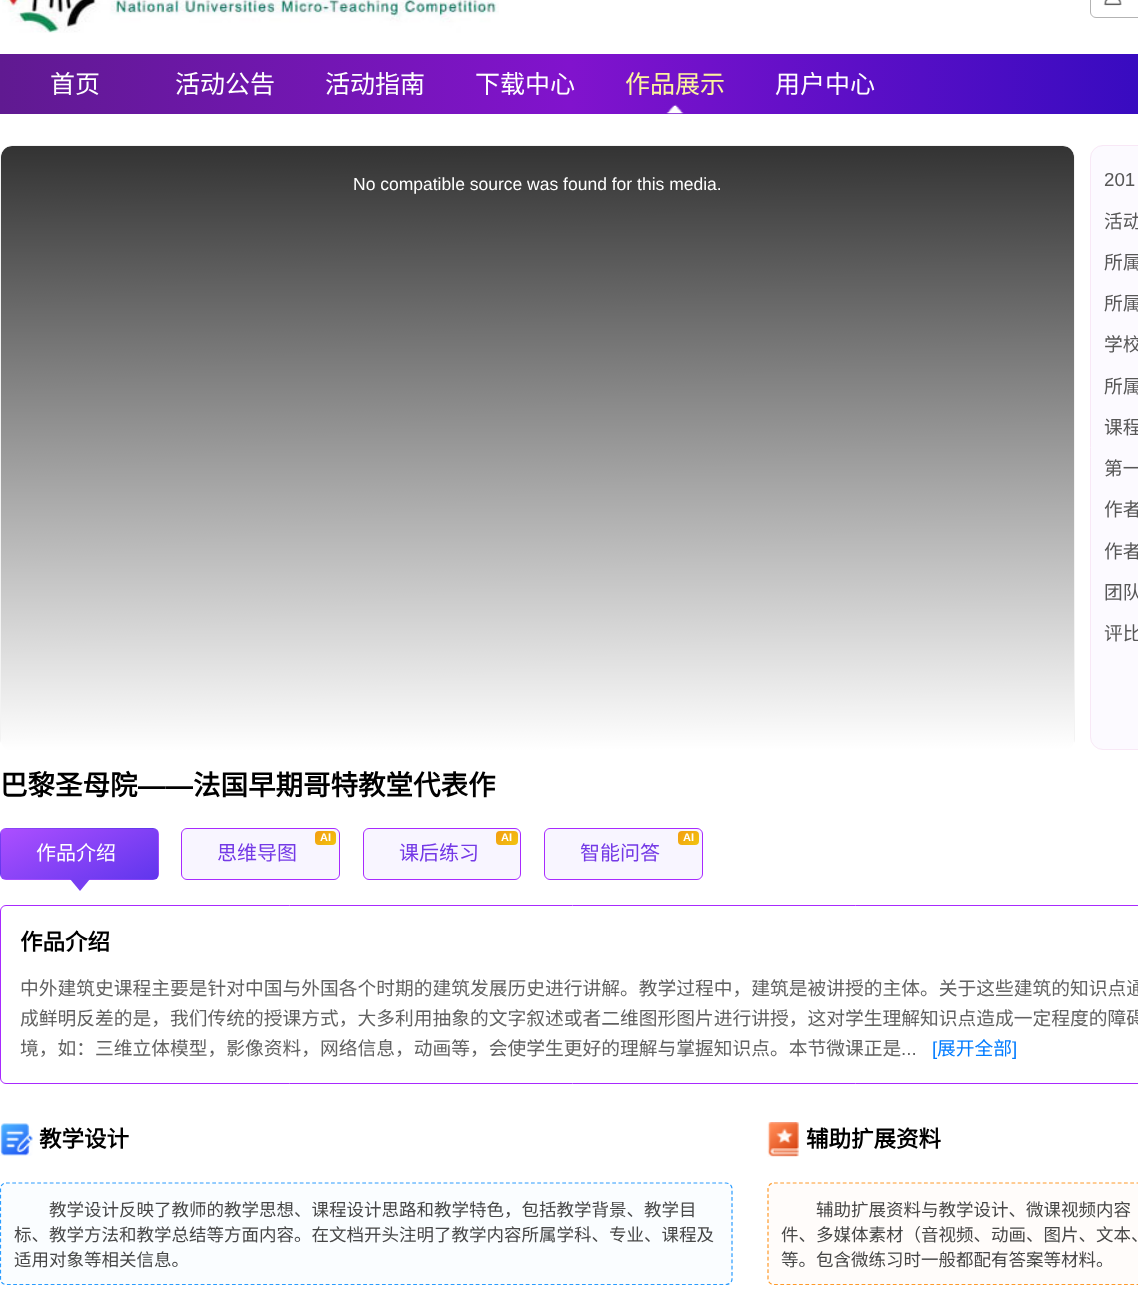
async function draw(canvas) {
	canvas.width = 1138;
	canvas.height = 1292;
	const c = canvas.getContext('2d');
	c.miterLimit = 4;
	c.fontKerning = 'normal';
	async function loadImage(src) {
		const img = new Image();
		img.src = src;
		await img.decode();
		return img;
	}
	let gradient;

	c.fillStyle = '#fff';
	c.fillRect(0, 0, 1138, 1292);
	c.drawImage(await loadImage('img1.png'), 2, 0, 497, 33);
	c.beginPath();
	c.roundRect(1090.5, -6.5, 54, 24, 5.5);
	c.strokeStyle = '#b3b3b3';
	c.stroke();
	c.drawImage(await loadImage('img2.png'), 1103, 0, 19, 6);
	gradient = c.createLinearGradient(0, 84, 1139, 84);
	gradient.addColorStop(0, '#601a91');
	gradient.addColorStop(0.5, '#8113cd');
	gradient.addColorStop(1, '#380bc0');
	c.fillStyle = gradient;
	c.fillRect(0, 54, 1138, 60);
	c.font = '25px Noto Sans CJK SC';
	c.fillStyle = '#fff';
	for (const [text, x, y] of [
		['首页', 50, 93],
		['活动公告', 175, 93],
		['活动指南', 325, 93],
		['下载中心', 475, 93],
	]) {
		c.fillText(text, x, y);
	}
	c.drawImage(await loadImage('img3.png'), 666, 104, 18, 10);
	c.fillStyle = '#fdf59d';
	c.fillText('作品展示', 625, 93);
	c.fillStyle = '#fff';
	c.fillText('用户中心', 775, 93);
	c.fillStyle = '#f3f3f3';
	c.beginPath();
	c.moveTo(13, 145);
	c.bezierCurveTo(6, 145, 0, 151, 0, 158);
	c.lineTo(0, 737);
	c.bezierCurveTo(0, 739, 0, 741, 1, 743);
	c.lineTo(1, 158);
	c.bezierCurveTo(1, 151, 6, 146, 13, 146);
	c.lineTo(1062, 146);
	c.bezierCurveTo(1069, 146, 1074, 151, 1074, 158);
	c.lineTo(1074, 743);
	c.bezierCurveTo(1075, 741, 1075, 739, 1075, 737);
	c.lineTo(1075, 158);
	c.bezierCurveTo(1075, 151, 1069, 145, 1062, 145);
	c.closePath();
	c.fill();
	c.save();
	c.beginPath();
	c.roundRect(1, 146, 1073, 605, 11);
	c.clip();
	gradient = c.createLinearGradient(537, 146, 538, 751);
	gradient.addColorStop(0, '#000000cc');
	gradient.addColorStop(1, '#00000000');
	c.fillStyle = gradient;
	c.beginPath();
	c.roundRect(1, 146, 1073, 604, [11, 11, 0, 0]);
	c.fill();
	c.restore();
	c.font = '17.5px Liberation Sans';
	c.fillStyle = '#fff';
	c.fillText('No compatible source was found for this media.', 353, 190);
	c.font = 'bold 27.5px Noto Sans CJK SC';
	c.fillStyle = '#000';
	c.fillText('巴黎圣母院', 0, 795);
	c.font = 'bold 27.5px Liberation Sans';
	c.fillText('——', 138, 795);
	c.font = 'bold 27.5px Noto Sans CJK SC';
	c.fillText('法国早期哥特教堂代表作', 193, 795);
	c.fillStyle = '#fcfaff';
	c.beginPath();
	c.roundRect(1090.5, 145.5, 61, 604, 12.5);
	c.fill();
	c.strokeStyle = '#f8e8f6';
	c.stroke();
	c.font = '18.75px Liberation Sans';
	c.fillStyle = '#575757';
	c.fillText('201', 1104, 186);
	c.font = '18.75px Noto Sans CJK SC';
	for (const [text, x, y] of [
		['活动', 1104, 228],
		['所属', 1104, 269],
		['所属', 1104, 310],
		['学校', 1104, 351],
		['所属', 1104, 393],
		['课程', 1104, 434],
		['第一', 1104, 475],
		['作者', 1104, 516],
		['作者', 1104, 558],
		['团队', 1104, 599],
		['评比', 1104, 640],
	]) {
		c.fillText(text, x, y);
	}
	c.save();
	c.beginPath();
	c.roundRect(0, 828, 159, 52, 6);
	c.clip();
	gradient = c.createLinearGradient(104, 855, 55, 753);
	gradient.addColorStop(0, '#6036ed');
	gradient.addColorStop(1, '#ac4fff');
	c.fillStyle = gradient;
	c.fillRect(1, 828, 157, 1);
	gradient = c.createLinearGradient(-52, 905, -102, 803);
	gradient.addColorStop(0, '#6036ed');
	gradient.addColorStop(1, '#ac4fff');
	c.fillStyle = gradient;
	c.fillRect(0, 829, 1, 50);
	gradient = c.createLinearGradient(104, 905, 55, 803);
	gradient.addColorStop(0, '#6036ed');
	gradient.addColorStop(1, '#ac4fff');
	c.fillStyle = gradient;
	c.fillRect(1, 829, 157, 50);
	gradient = c.createLinearGradient(260, 905, 211, 803);
	gradient.addColorStop(0, '#6036ed');
	gradient.addColorStop(1, '#ac4fff');
	c.fillStyle = gradient;
	c.fillRect(158, 829, 1, 50);
	gradient = c.createLinearGradient(104, 955, 55, 853);
	gradient.addColorStop(0, '#6036ed');
	gradient.addColorStop(1, '#ac4fff');
	c.fillStyle = gradient;
	c.fillRect(1, 879, 157, 1);
	c.restore();
	c.font = '20px Noto Sans CJK SC';
	c.fillStyle = '#fff';
	c.fillText('作品介绍', 36, 860);
	c.fillStyle = '#783ef2';
	c.beginPath();
	c.moveTo(70, 879);
	c.lineTo(90, 879);
	c.lineTo(80, 891);
	c.closePath();
	c.fill();
	c.fillStyle = '#f8f5ff';
	c.beginPath();
	c.roundRect(181.5, 828.5, 158, 51, 5.5);
	c.fill();
	c.strokeStyle = '#a82aff';
	c.stroke();
	gradient = c.createLinearGradient(317, 829, 334, 847);
	gradient.addColorStop(0, '#f39c12');
	gradient.addColorStop(1, '#f1c40f');
	c.fillStyle = gradient;
	c.beginPath();
	c.roundRect(315, 831, 21, 14, 4);
	c.fill();
	c.font = 'bold 11px Liberation Sans';
	c.fillStyle = '#fff';
	c.fillText('AI', 320, 841);
	c.font = '20px Noto Sans CJK SC';
	c.fillStyle = '#7439e6';
	c.fillText('思维导图', 217, 860);
	c.fillStyle = '#f8f5ff';
	c.beginPath();
	c.roundRect(363.5, 828.5, 157, 51, 5.5);
	c.fill();
	c.stroke();
	gradient = c.createLinearGradient(498, 829, 516, 847);
	gradient.addColorStop(0, '#f39c12');
	gradient.addColorStop(1, '#f1c40f');
	c.fillStyle = gradient;
	c.beginPath();
	c.roundRect(496, 831, 22, 14, 4);
	c.fill();
	c.font = 'bold 11px Liberation Sans';
	c.fillStyle = '#fff';
	c.fillText('AI', 501, 841);
	c.font = '20px Noto Sans CJK SC';
	c.fillStyle = '#7439e6';
	c.fillText('课后练习', 399, 860);
	c.fillStyle = '#f8f5ff';
	c.beginPath();
	c.roundRect(544.5, 828.5, 158, 51, 5.5);
	c.fill();
	c.stroke();
	gradient = c.createLinearGradient(679, 829, 697, 847);
	gradient.addColorStop(0, '#f39c12');
	gradient.addColorStop(1, '#f1c40f');
	c.fillStyle = gradient;
	c.beginPath();
	c.roundRect(678, 831, 21, 14, 4);
	c.fill();
	c.font = 'bold 11px Liberation Sans';
	c.fillStyle = '#fff';
	c.fillText('AI', 683, 841);
	c.font = '20px Noto Sans CJK SC';
	c.fillStyle = '#7439e6';
	c.fillText('智能问答', 580, 860);
	c.beginPath();
	c.roundRect(0.5, 905.5, 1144, 178, 5.5);
	c.stroke();
	c.font = 'bold 22.5px Noto Sans CJK SC';
	c.fillStyle = '#000';
	c.fillText('作品介绍', 20, 950);
	c.font = '18.75px Noto Sans CJK SC';
	c.fillStyle = '#626262';
	for (const [text, x, y] of [
		['中外建筑史课程主要是针对中国与外国各个时期的建筑发展历史进行讲解。教学过程中，建筑是被讲授的主体。关于这些建筑的知识点通', 20, 995],
		['成鲜明反差的是，我们传统的授课方式，大多利用抽象的文字叙述或者二维图形图片进行讲授，这对学生理解知识点造成一定程度的障碍', 20, 1025],
		['境，如：三维立体模型，影像资料，网络信息，动画等，会使学生更好的理解与掌握知识点。本节微课正是', 20, 1055],
	]) {
		c.fillText(text, x, y);
	}
	c.font = '18.75px Liberation Sans';
	c.fillText('...', 901, 1055);
	c.fillStyle = '#007bff';
	c.fillText('[', 932, 1055);
	c.font = '18.75px Noto Sans CJK SC';
	c.fillText('展开全部', 937, 1055);
	c.font = '18.75px Liberation Sans';
	c.fillText(']', 1012, 1055);
	c.drawImage(await loadImage('img4.png'), 0, 1123, 33, 33);
	c.font = 'bold 22.5px Noto Sans CJK SC';
	c.fillStyle = '#000';
	c.fillText('教学设计', 39, 1147);
	c.fillStyle = '#fafdff';
	c.beginPath();
	c.roundRect(0, 1183, 733, 102, 6);
	c.fill();
	c.beginPath();
	c.moveTo(6, 1183);
	c.lineTo(726, 1183);
	c.bezierCurveTo(729.5, 1183, 732, 1185.5, 732, 1189);
	c.lineTo(732, 1279);
	c.bezierCurveTo(732, 1282, 729.5, 1284.5, 726, 1284.5);
	c.lineTo(6, 1284.5);
	c.bezierCurveTo(3, 1284.5, 0.5, 1282, 0.5, 1279);
	c.lineTo(0.5, 1189);
	c.bezierCurveTo(0.5, 1185.5, 3, 1183, 6, 1183);
	c.closePath();
	c.strokeStyle = '#2a9cff';
	c.lineWidth = 1.2;
	c.setLineDash([3.75, 2.5]);
	c.stroke();
	c.font = '17.5px Noto Sans CJK SC';
	c.fillStyle = '#474747';
	for (const [text, x, y] of [
		['教学设计反映了教师的教学思想、课程设计思路和教学特色，包括教学背景、教学目', 49, 1216],
		['标、教学方法和教学总结等方面内容。在文档开头注明了教学内容所属学科、专业、课程及', 14, 1241],
		['适用对象等相关信息。', 14, 1266],
	]) {
		c.fillText(text, x, y);
	}
	c.drawImage(await loadImage('img5.png'), 767, 1122, 32, 35);
	c.font = 'bold 22.5px Noto Sans CJK SC';
	c.fillStyle = '#000';
	c.fillText('辅助扩展资料', 806, 1147);
	c.fillStyle = '#fffcfa';
	c.beginPath();
	c.roundRect(768, 1183, 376, 102, 6);
	c.fill();
	c.beginPath();
	c.moveTo(774, 1183);
	c.lineTo(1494, 1183);
	c.bezierCurveTo(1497, 1183, 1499.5, 1185.5, 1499.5, 1189);
	c.lineTo(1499.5, 1279);
	c.bezierCurveTo(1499.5, 1282, 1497, 1284.5, 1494, 1284.5);
	c.lineTo(774, 1284.5);
	c.bezierCurveTo(770.5, 1284.5, 768, 1282, 768, 1279);
	c.lineTo(768, 1189);
	c.bezierCurveTo(768, 1185.5, 770.5, 1183, 774, 1183);
	c.closePath();
	c.strokeStyle = '#ff9a2a';
	c.stroke();
	c.font = '17.5px Noto Sans CJK SC';
	c.fillStyle = '#474747';
	for (const [text, x, y] of [
		['辅助扩展资料与教学设计、微课视频内容', 816, 1216],
		['件、多媒体素材（音视频、动画、图片、文本、', 781, 1241],
		['等。包含微练习时一般都配有答案等材料。', 781, 1266],
	]) {
		c.fillText(text, x, y);
	}
}

draw(document.querySelector('canvas'));
